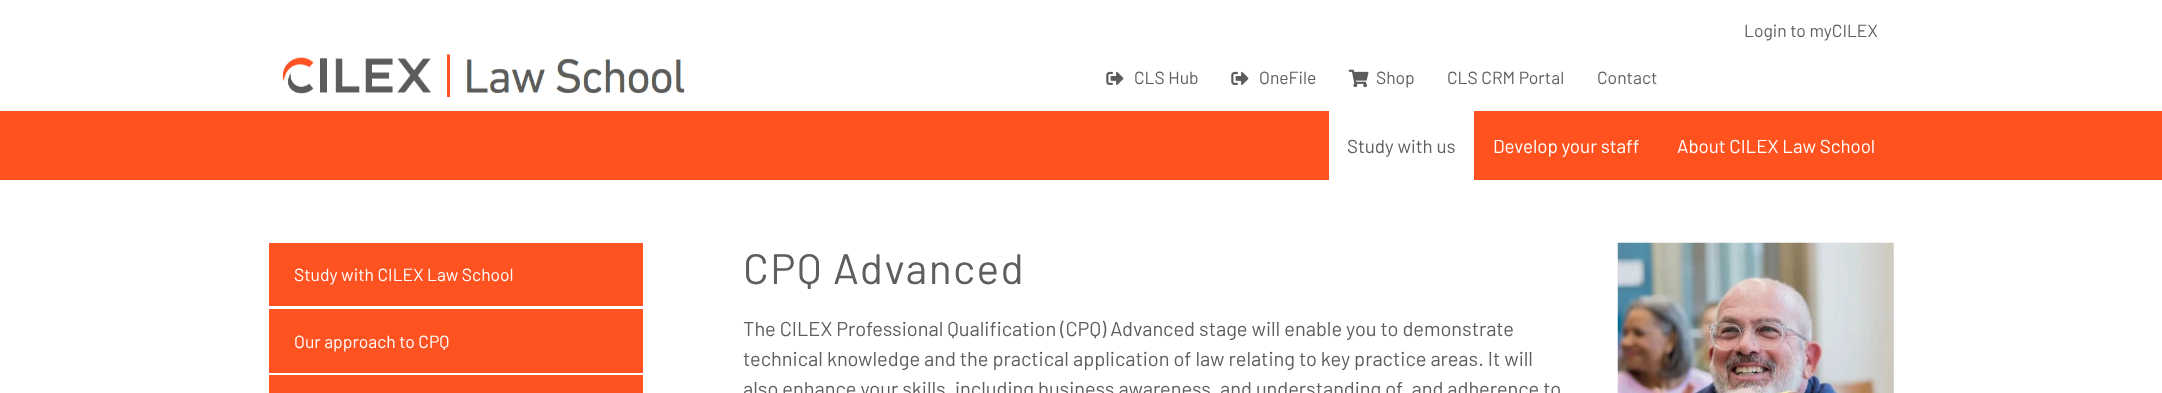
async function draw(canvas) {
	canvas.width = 2162;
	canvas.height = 393;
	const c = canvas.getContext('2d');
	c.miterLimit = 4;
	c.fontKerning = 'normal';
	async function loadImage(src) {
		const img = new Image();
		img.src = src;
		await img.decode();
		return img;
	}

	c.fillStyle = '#fff';
	c.fillRect(0, 0, 2162, 393);
	c.font = '17.5px Barlow';
	c.fillStyle = '#5e5e5e';
	c.fillText('Login to myCILEX', 1744, 37);
	c.drawImage(await loadImage('img1.png'), 1106, 71, 18, 14);
	c.fillText('CLS Hub', 1134, 84);
	c.drawImage(await loadImage('img1.png'), 1231, 71, 18, 14);
	c.fillText('OneFile', 1259, 84);
	c.drawImage(await loadImage('img2.png'), 1348, 69, 21, 19);
	for (const [text, x, y] of [
		['Shop', 1376, 84],
		['CLS CRM Portal', 1447, 84],
		['Contact', 1597, 84],
	]) {
		c.fillText(text, x, y);
	}
	c.fillStyle = '#ff521f';
	c.fillRect(0, 111, 2162, 69);
	c.drawImage(await loadImage('img3.png'), 282, 54, 403, 43);
	c.fillStyle = '#fff';
	c.fillRect(1329, 111, 145, 69);
	c.font = '18.75px Barlow';
	c.fillStyle = '#5e5e5e';
	c.fillText('Study with us', 1347, 153);
	c.fillStyle = '#fff';
	c.fillText('Develop your staff', 1493, 153);
	c.fillText('About CILEX Law School', 1677, 153);
	c.fillStyle = '#fe5221';
	c.fillRect(269, 243, 374, 63);
	c.font = '17.5px Barlow';
	c.fillStyle = '#fff';
	c.fillText('Study with CILEX Law School', 294, 281);
	c.fillStyle = '#fe5221';
	c.fillRect(269, 309, 374, 64);
	c.fillStyle = '#fff';
	c.fillText('Our approach to CPQ', 294, 348);
	c.fillStyle = '#fe5221';
	c.fillRect(269, 375, 374, 18);
	c.letterSpacing = '1.5px';
	c.font = '42.5px Barlow';
	c.fillStyle = '#5e5e5e';
	c.fillText('CPQ Advanced', 743, 284);
	c.letterSpacing = '0px';
	c.font = '20px Barlow';
	for (const [text, x, y] of [
		['The CILEX Professional Qualification (CPQ) Advanced stage will enable you to demonstrate', 743, 336],
		['technical knowledge and the practical application of law relating to key practice areas. It will', 743, 366],
		['also enhance your skills, including business awareness, and understanding of, and adherence to', 743, 396],
	]) {
		c.fillText(text, x, y);
	}
	c.drawImage(await loadImage('img4.png'), 1617, 242, 277, 151);
}

draw(document.querySelector('canvas'));
